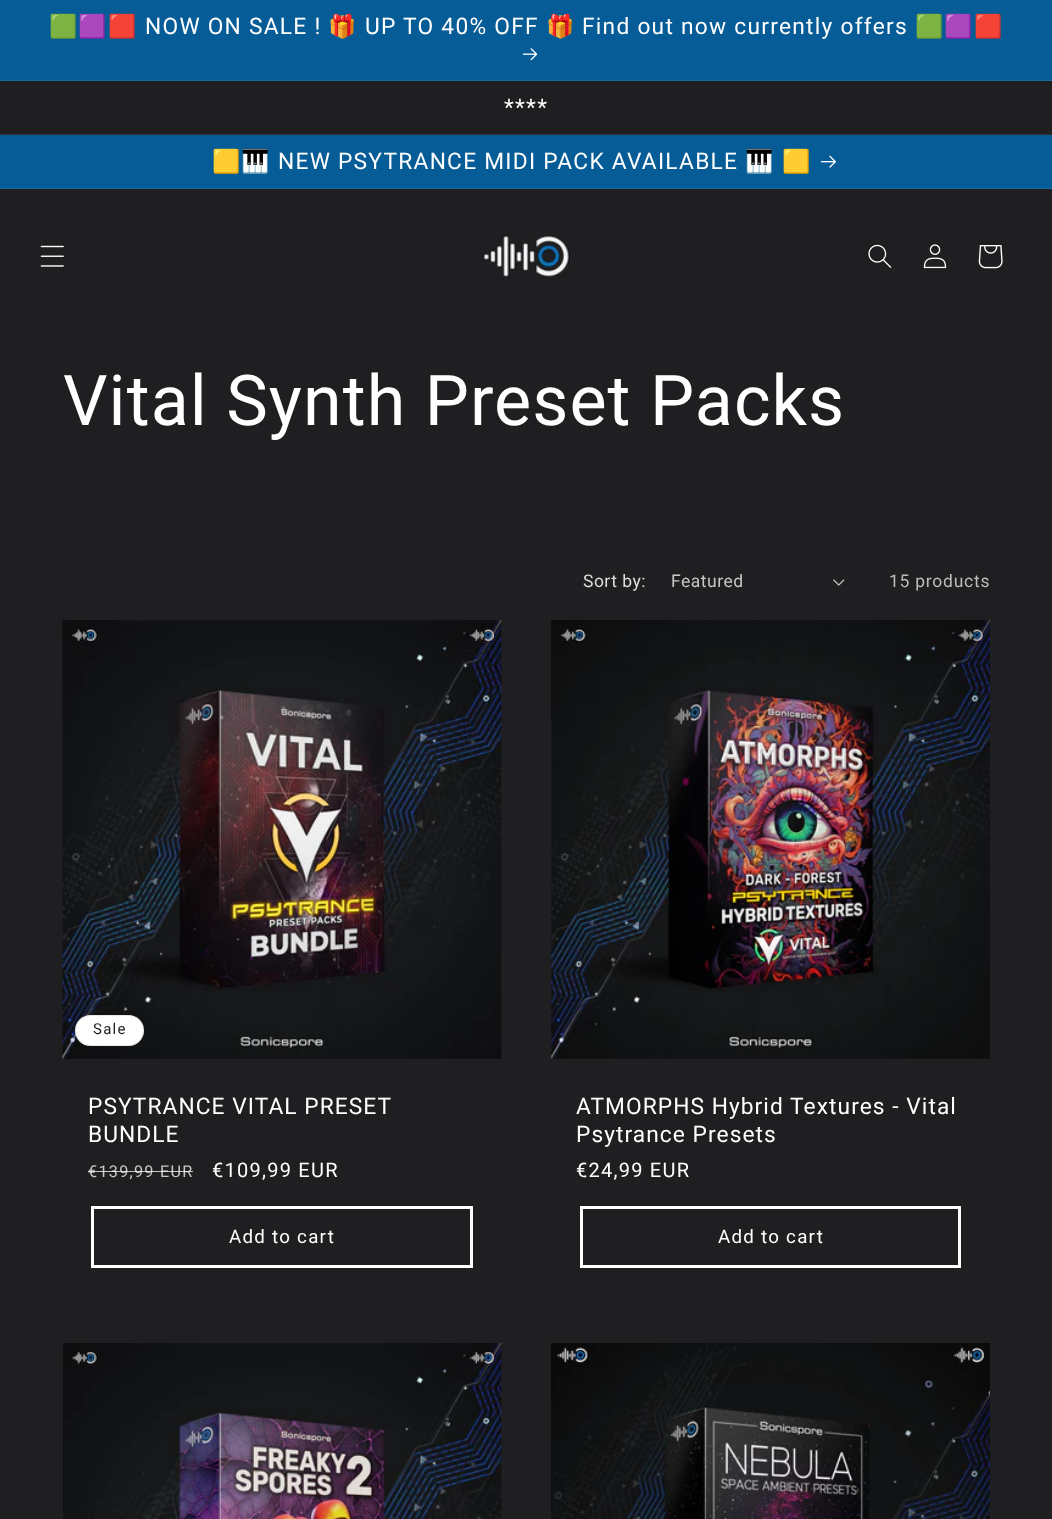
async function draw(canvas) {
	canvas.width = 1052;
	canvas.height = 1519;
	const c = canvas.getContext('2d');
	c.miterLimit = 4;
	c.fontKerning = 'normal';
	async function loadImage(src) {
		const img = new Image();
		img.src = src;
		await img.decode();
		return img;
	}

	c.fillStyle = '#1f1f21';
	c.fillRect(0, 0, 1052, 1519);
	c.fillStyle = '#065c96';
	c.fillRect(0, 0, 1052, 80);
	c.fillStyle = '#1a699e';
	c.fillRect(0, 80, 1052, 1);
	c.letterSpacing = '1.25px';
	c.font = '22.75px Noto Color Emoji';
	c.fillStyle = '#fff';
	c.fillText('🟩🟪🟥', 49, 34);
	c.font = '22.75px Roboto';
	c.fillText('NOW ON SALE !', 145, 34);
	c.font = '22.75px Noto Color Emoji';
	c.fillText('🎁', 328, 34);
	c.font = '22.75px Roboto';
	c.fillText('UP TO 40% OFF', 365, 34);
	c.font = '22.75px Noto Color Emoji';
	c.fillText('🎁', 546, 34);
	c.font = '22.75px Roboto';
	c.fillText('Find out now currently offers', 582, 34);
	c.font = '22.75px Noto Color Emoji';
	c.fillText('🟩🟪🟥', 915, 34);
	c.drawImage(await loadImage('img1.png'), 523, 48, 15, 13);
	c.fillStyle = '#313133';
	c.fillRect(0, 134, 1052, 1);
	c.font = '22.75px Roboto';
	c.fillStyle = '#fff';
	c.fillText('****', 504, 115);
	c.fillStyle = '#065c96';
	c.fillRect(0, 135, 1052, 53);
	c.fillStyle = '#1a699e';
	c.fillRect(0, 188, 1052, 1);
	c.font = '22.75px Noto Color Emoji';
	c.fillStyle = '#fff';
	c.fillText('🟨🎹', 212, 169);
	c.font = '22.75px Roboto';
	c.fillText('NEW PSYTRANCE MIDI PACK AVAILABLE', 278, 169);
	c.font = '22.75px Noto Color Emoji';
	c.fillText('🎹', 745, 169);
	c.fillText('🟨', 782, 169);
	c.drawImage(await loadImage('img2.png'), 821, 155, 15, 13);
	c.drawImage(await loadImage('img3.png'), 40, 245, 24, 22);
	c.drawImage(await loadImage('img4.png'), 482, 235, 89, 45);
	c.drawImage(await loadImage('img5.png'), 868, 244, 24, 24);
	c.drawImage(await loadImage('img6.png'), 923, 244, 24, 25);
	c.drawImage(await loadImage('img7.png'), 978, 245, 25, 24);
	c.letterSpacing = '1.05px';
	c.font = '70px Roboto';
	c.fillText('Vital Synth Preset Packs', 63, 425);
	c.letterSpacing = '0.5px';
	c.font = '17.5px Roboto';
	c.fillStyle = '#ddddde';
	c.fillText('Sort by:', 583, 587);
	c.fillStyle = '#c7c7c8';
	c.fillText('Featured', 671, 587);
	c.drawImage(await loadImage('img8.png'), 833, 579, 12, 7);
	c.letterSpacing = '0.75px';
	c.fillStyle = '#bcbcbc';
	c.fillText('15 products', 889, 587);
	c.drawImage(await loadImage('img9.png'), 62, 620, 440, 439);
	c.fillStyle = '#fff';
	c.beginPath();
	c.roundRect(75, 1015, 69, 31, 15.5);
	c.fill();
	c.beginPath();
	c.roundRect(75.5, 1015.5, 68, 30, 15);
	c.strokeStyle = '#1f1f211a';
	c.stroke();
	c.letterSpacing = '1.25px';
	c.font = '15px Roboto';
	c.fillStyle = '#1f1f21';
	c.fillText('Sale', 93, 1034);
	c.letterSpacing = '1.05px';
	c.font = '22.75px Roboto';
	c.fillStyle = '#fff';
	c.fillText('PSYTRANCE VITAL PRESET', 88, 1114);
	c.fillText('BUNDLE', 88, 1142);
	c.letterSpacing = '1.25px';
	c.font = '16.25px Roboto';
	c.fillStyle = '#c7c7c8';
	c.fillText('€139,99 EUR', 88, 1177);
	c.fillStyle = '#ffffffbf';
	c.fillRect(88, 1171, 105, 1);
	c.font = '20px Roboto';
	c.fillStyle = '#fff';
	c.fillText('€109,99 EUR', 212, 1177);
	c.strokeStyle = '#fff';
	c.lineWidth = 3;
	c.strokeRect(92.5, 1207.5, 379, 59);
	c.font = '18.75px Roboto';
	c.fillText('Add to cart', 229, 1243);
	c.drawImage(await loadImage('img10.png'), 551, 620, 439, 439);
	c.letterSpacing = '1.05px';
	c.font = '22.75px Roboto';
	c.fillText('ATMORPHS Hybrid Textures - Vital', 576, 1114);
	c.fillText('Psytrance Presets', 576, 1142);
	c.letterSpacing = '1.25px';
	c.font = '20px Roboto';
	c.fillText('€24,99 EUR', 576, 1177);
	c.strokeRect(581.5, 1207.5, 378, 59);
	c.font = '18.75px Roboto';
	c.fillText('Add to cart', 718, 1243);
	c.drawImage(await loadImage('img11.png'), 63, 1343, 439, 176);
	c.drawImage(await loadImage('img12.png'), 551, 1343, 439, 176);
}

draw(document.querySelector('canvas'));
